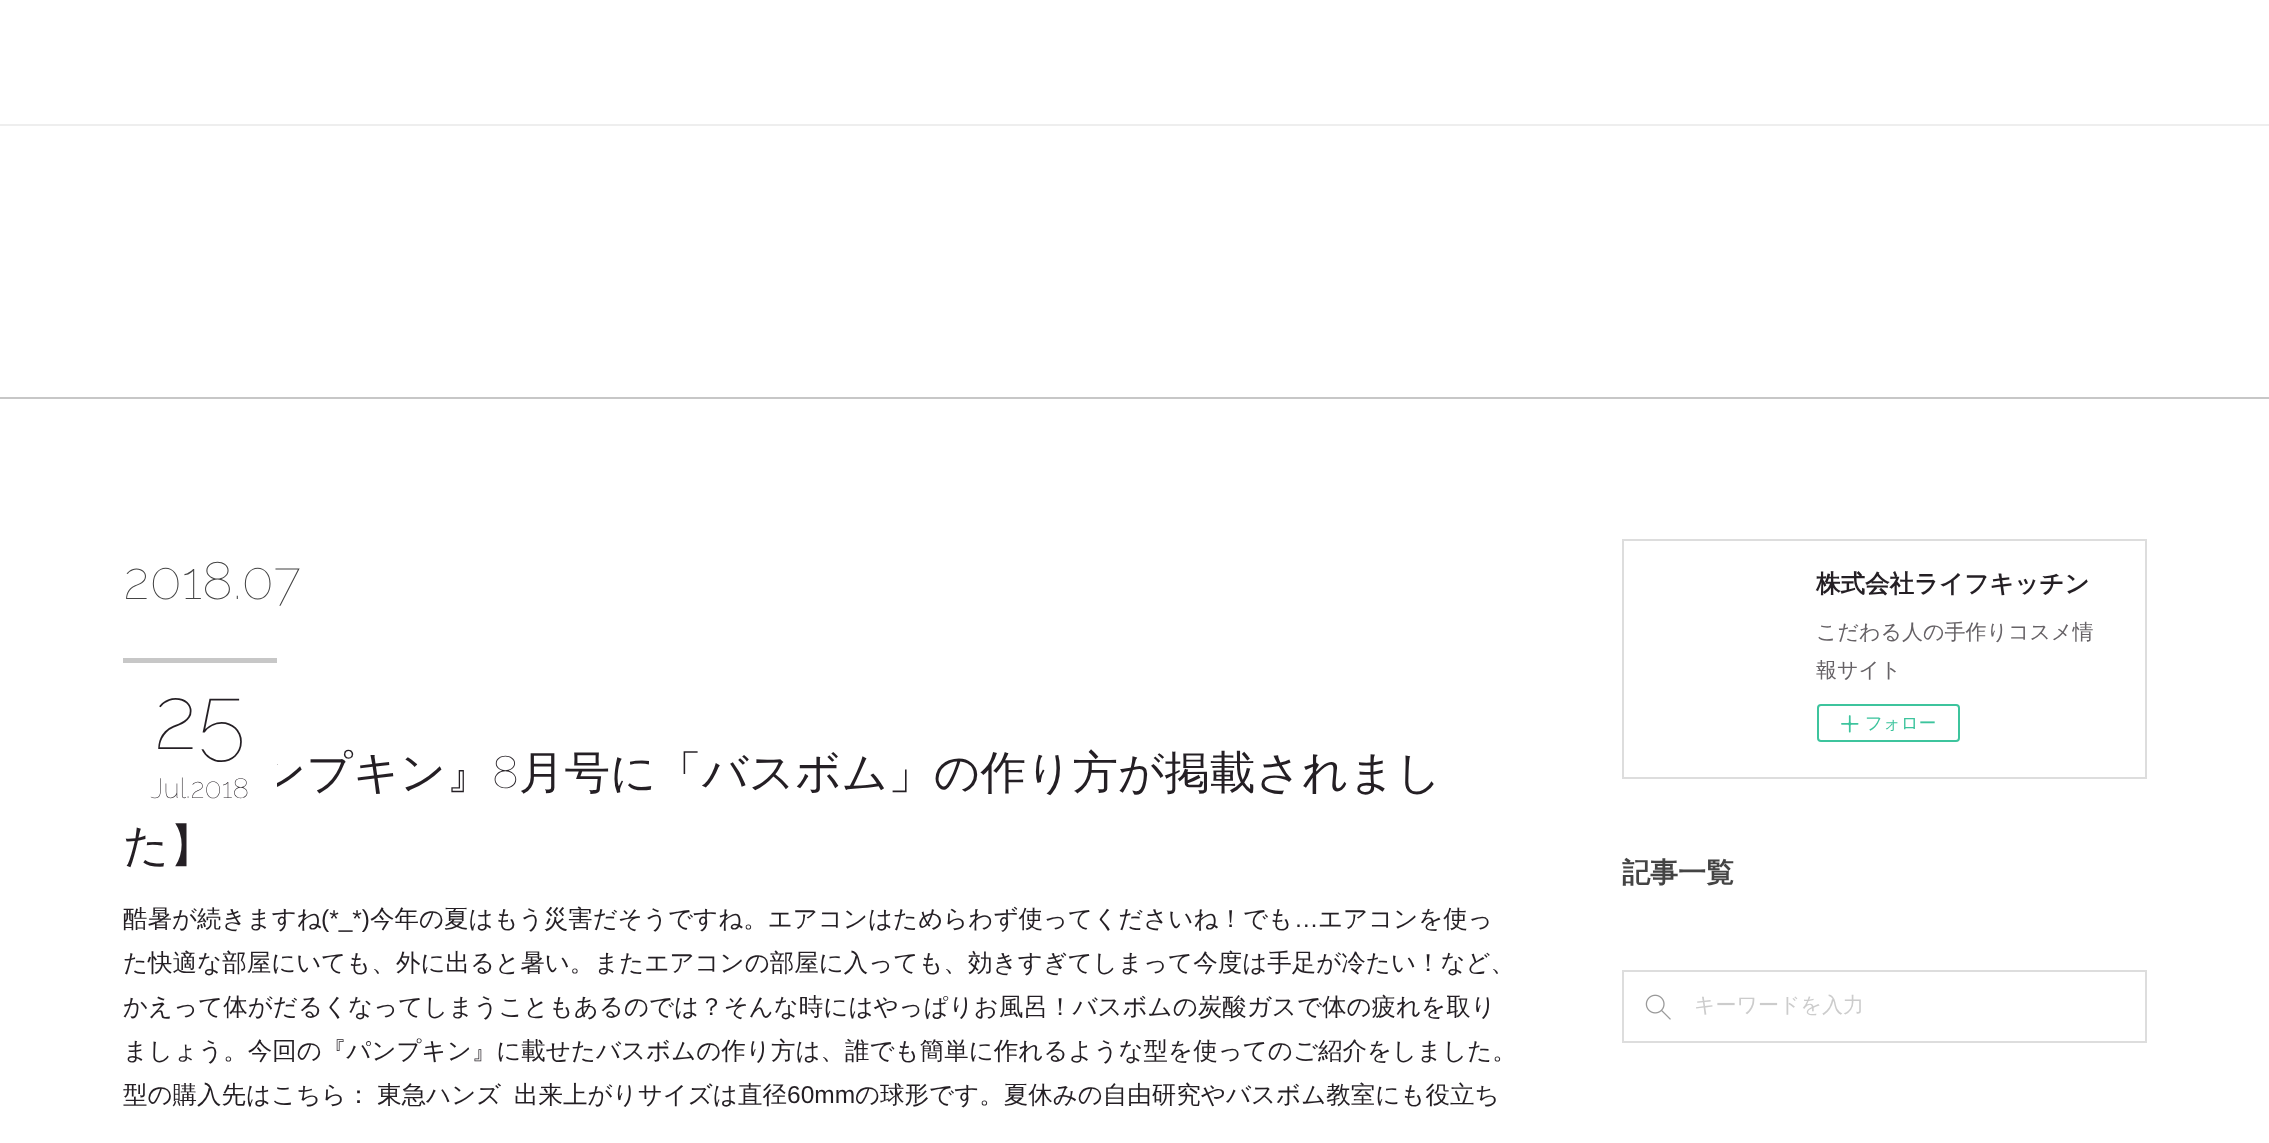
async function draw(canvas) {
	canvas.width = 2269;
	canvas.height = 1143;
	const c = canvas.getContext('2d');
	c.miterLimit = 4;
	c.fontKerning = 'normal';
	async function loadImage(src) {
		const img = new Image();
		img.src = src;
		await img.decode();
		return img;
	}

	c.fillStyle = '#fff';
	c.fillRect(0, 0, 2269, 1143);
	c.fillStyle = '#eee';
	c.fillRect(0, 124, 2269, 2);
	c.fillStyle = '#c7c7c7';
	c.fillRect(0, 397, 2269, 2);
	c.font = '100 52.5px Raleway';
	c.fillStyle = '#444';
	c.fillText('2018.07', 123, 599);
	c.font = '500 45.5px WenQuanYi Zen Hei';
	c.fillStyle = '#241f24';
	c.fillText('ンプキン』', 260, 788);
	c.fillStyle = '#fff';
	c.fillRect(265, 757, 12, 35);
	c.fillStyle = '#c7c7c7';
	c.fillRect(123, 658, 154, 5);
	c.font = '100 88px Raleway';
	c.fillStyle = '#241f24';
	c.fillText('25', 153, 749);
	c.font = '100 28px Raleway';
	c.fillText('Jul.2018', 150, 798);
	c.font = '100 45.5px Raleway';
	c.fillText('8', 492, 788);
	c.font = '500 45.5px WenQuanYi Zen Hei';
	c.fillText('月号に「バスボム」の作り方が掲載されまし', 519, 788);
	c.fillText('た】', 123, 861);
	c.font = '500 24.5px WenQuanYi Zen Hei';
	c.fillText('酷暑が続きますね', 123, 927);
	c.font = '24.5px Liberation Sans';
	c.fillText('(*_*)', 321, 927);
	c.font = '500 24.5px WenQuanYi Zen Hei';
	c.fillText('今年の夏はもう災害だそうですね。エアコンはためらわず使ってくださいね！でも', 370, 927);
	c.font = '24.5px Liberation Sans';
	c.fillText('…', 1294, 927);
	c.font = '500 24.5px WenQuanYi Zen Hei';
	for (const [text, x, y] of [
		['エアコンを使っ', 1318, 927],
		['た快適な部屋にいても、外に出ると暑い。またエアコンの部屋に入っても、効きすぎてしまって今度は手足が冷たい！など、', 123, 971],
		['かえって体がだるくなってしまうこともあるのでは？そんな時にはやっぱりお風呂！バスボムの炭酸ガスで体の疲れを取り', 123, 1015],
		['ましょう。今回の『パンプキン』に載せたバスボムの作り方は、誰でも簡単に作れるような型を使ってのご紹介をしました。', 123, 1059],
	]) {
		c.fillText(text, x, y);
	}
	c.wordSpacing = '-1px';
	c.fillText('型の購入先はこちら： 東急ハンズ', 123, 1103);
	c.wordSpacing = '0px';
	c.fillText('出来上がりサイズは直径', 514, 1103);
	c.font = '24.5px Liberation Sans';
	c.fillText('60mm', 787, 1103);
	c.font = '500 24.5px WenQuanYi Zen Hei';
	c.fillText('の球形です。夏休みの自由研究やバスボム教室にも役立ち', 855, 1103);
	c.strokeStyle = '#ddd';
	c.lineWidth = 2;
	c.strokeRect(1623, 540, 523, 238);
	c.font = 'bold 24.5px WenQuanYi Zen Hei';
	c.fillText('株式会社ライフキッチン', 1816, 592);
	c.font = '500 21px WenQuanYi Zen Hei';
	c.fillStyle = '#666266';
	c.fillText('こだわる人の手作りコスメ情', 1816, 639);
	c.fillText('報サイト', 1816, 677);
	c.beginPath();
	c.roundRect(1818, 705, 141, 36, 3);
	c.strokeStyle = '#3dc49d';
	c.stroke();
	c.drawImage(await loadImage('img1.png'), 1841, 715, 18, 18);
	c.font = '500 17.5px WenQuanYi Zen Hei';
	c.fillStyle = '#3dc49d';
	c.fillText('フォロー', 1865, 729);
	c.font = 'bold 28px WenQuanYi Zen Hei';
	c.fillStyle = '#444';
	c.fillText('記事一覧', 1622, 882);
	c.strokeStyle = '#ddd';
	c.strokeRect(1623, 971, 523, 71);
	c.drawImage(await loadImage('img2.png'), 1645, 994, 26, 26);
	c.font = '500 21px WenQuanYi Zen Hei';
	c.fillStyle = '#ccc';
	c.fillText('キーワードを入力', 1694, 1012);
}

draw(document.querySelector('canvas'));
